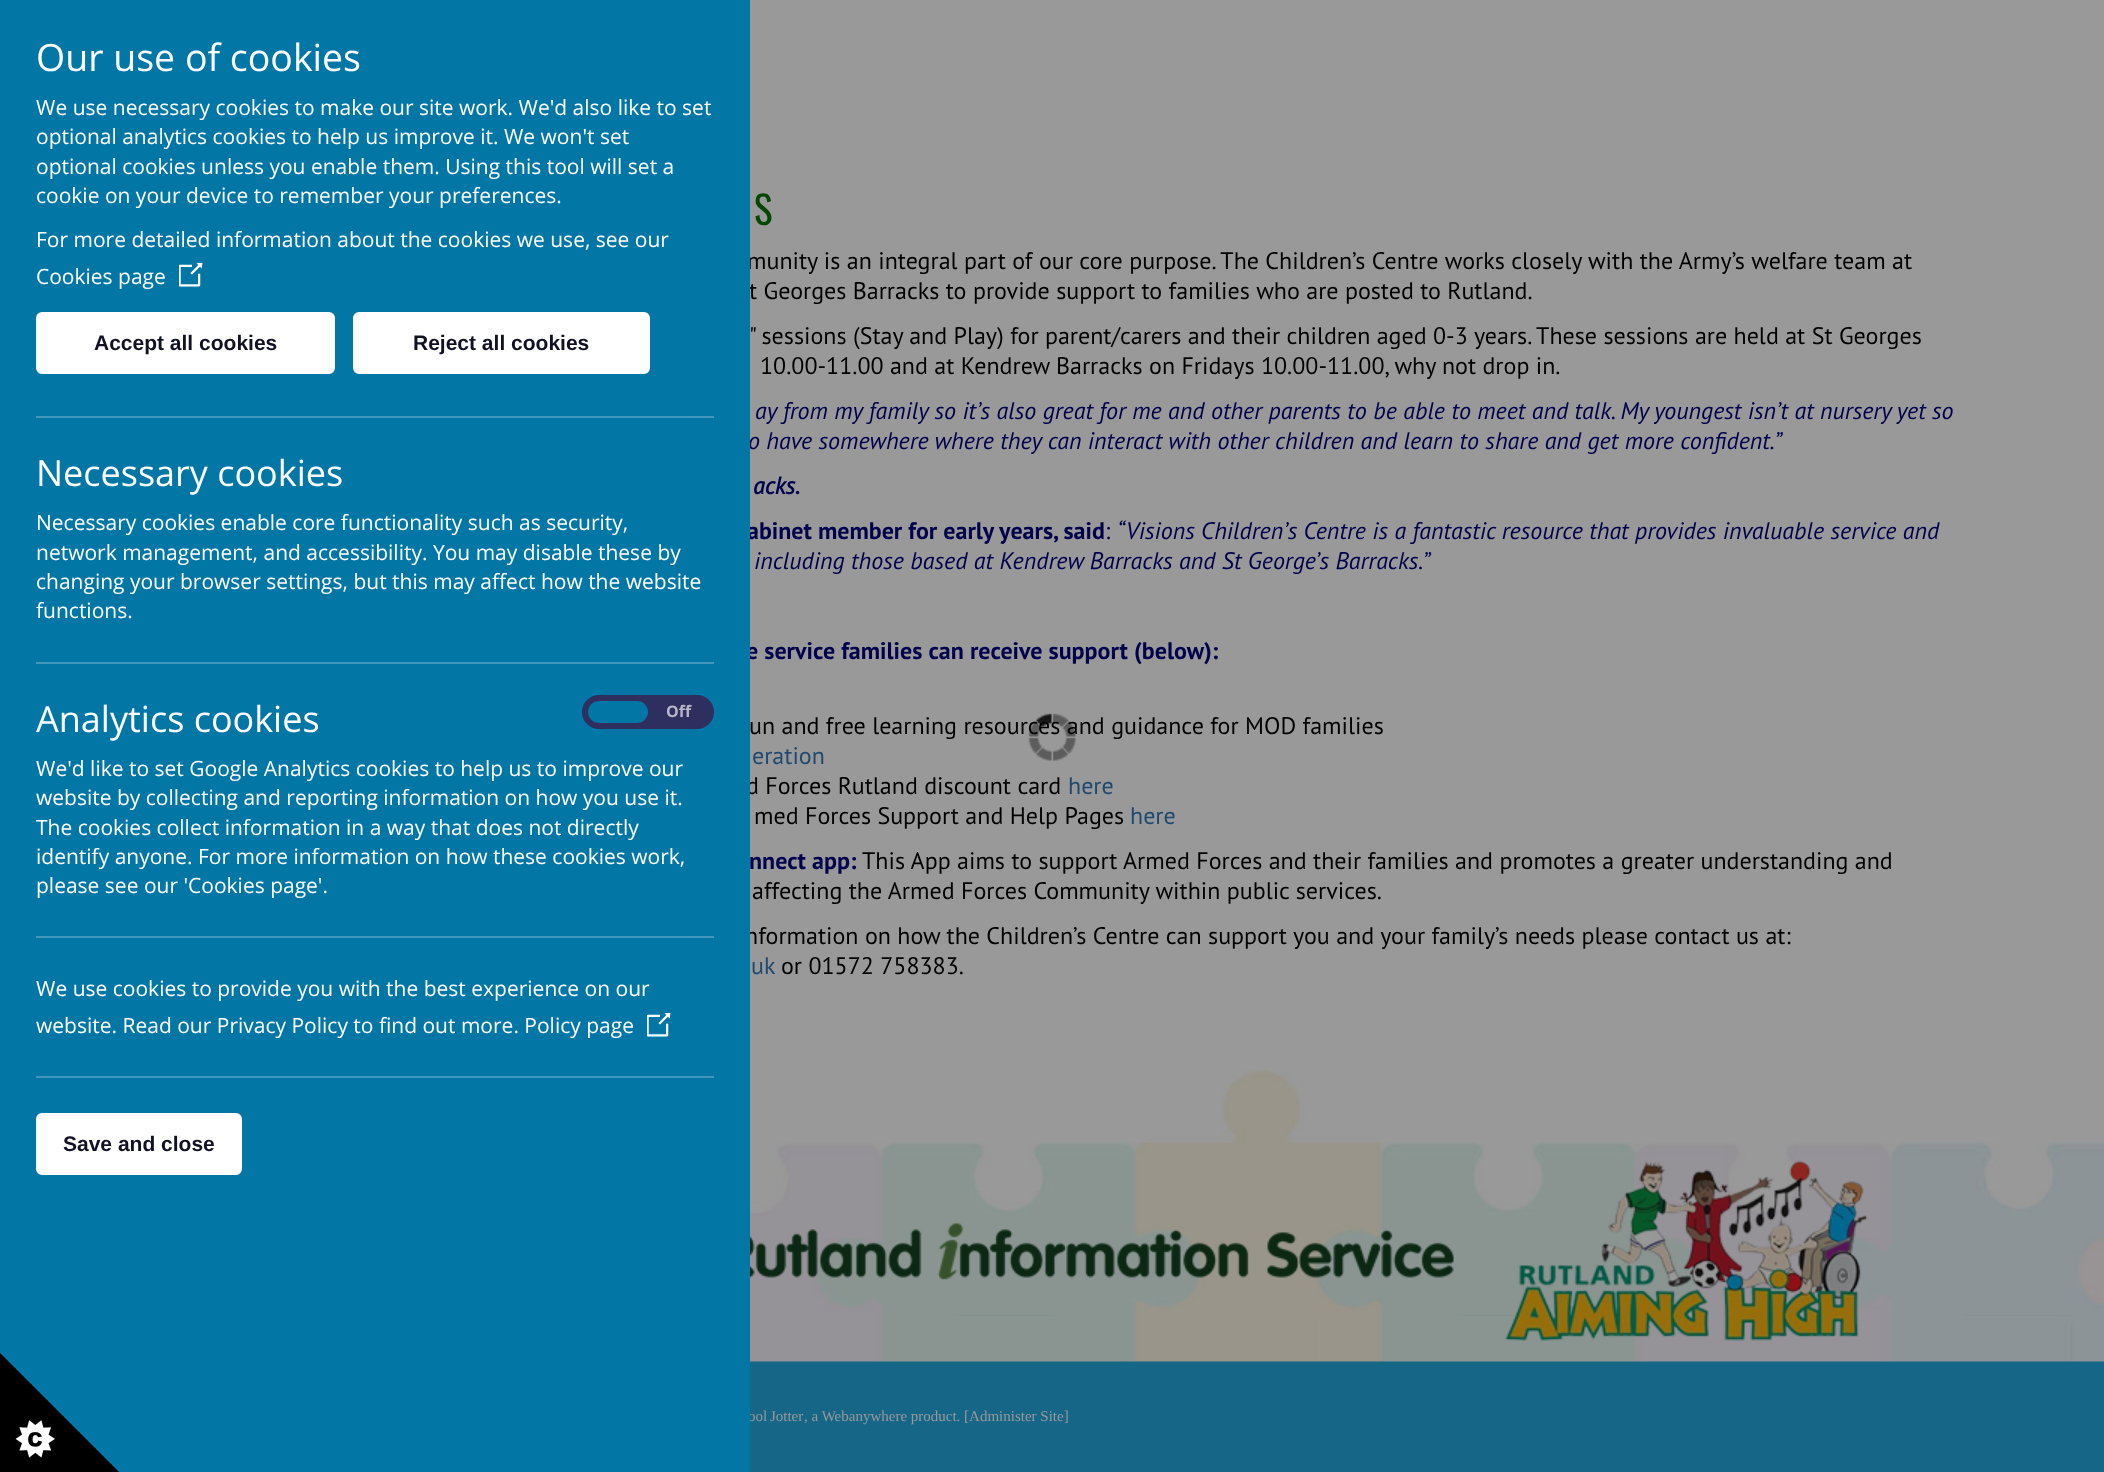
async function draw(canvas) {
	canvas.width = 2104;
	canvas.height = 1472;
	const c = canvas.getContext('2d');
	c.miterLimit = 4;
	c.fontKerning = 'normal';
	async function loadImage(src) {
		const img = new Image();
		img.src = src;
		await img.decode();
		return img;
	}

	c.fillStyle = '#999';
	c.fillRect(0, 0, 2104, 1472);
	c.fillStyle = '#166687';
	c.fillRect(750, 1361, 1354, 111);
	c.wordSpacing = '-1px';
	c.font = '15px Liberation Serif';
	c.fillStyle = '#999';
	c.fillText('ool Jotter', 748, 1421);
	c.wordSpacing = '0px';
	c.font = '24px PT Sans';
	c.fillStyle = '#000';
	c.fillText('munity is an integral part of our core purpose. The Children’s Centre works closely with the Army’s welfare team at', 747, 269);
	c.fillText('t Georges Barracks to provide support to families who are posted to Rutland.', 749, 299);
	c.font = 'italic 24px PT Sans';
	c.fillStyle = '#00004d';
	c.fillText('o have somewhere where they can interact with other children and learn to share and get more confident.”', 748, 449);
	c.font = 'bold 24px PT Sans';
	c.fillText('abinet member for early years, said', 747, 539);
	c.fillText('e service families can receive support (below):', 746, 659);
	c.font = '24px PT Sans';
	c.fillStyle = '#000';
	c.fillText('d Forces Rutland discount card', 746, 794);
	c.fillText('nformation on how the Children’s Centre can support you and your family’s needs please contact us at:', 745, 944);
	c.fillStyle = '#0276a5';
	c.fillRect(0, 0, 750, 1472);
	c.font = '37.5px Open Sans';
	c.fillStyle = '#fff';
	c.fillText('Our use of cookies', 36, 71);
	c.font = '21px Open Sans';
	for (const [text, x, y] of [
		['We use necessary cookies to make our site work. We\'d also like to set', 36, 115],
		['optional analytics cookies to help us improve it. We won\'t set', 36, 144],
		['optional cookies unless you enable them. Using this tool will set a', 36, 174],
		['cookie on your device to remember your preferences.', 36, 203],
		['For more detailed information about the cookies we use, see our', 36, 247],
		['Cookies page', 36, 284],
	]) {
		c.fillText(text, x, y);
	}
	c.drawImage(await loadImage('img1.png'), 179, 263, 24, 24);
	c.beginPath();
	c.roundRect(37.5, 313.5, 296, 59, 4.5);
	c.fill();
	c.strokeStyle = '#fff';
	c.lineWidth = 3;
	c.stroke();
	c.font = 'bold 21px Liberation Sans';
	c.fillStyle = '#111125';
	c.fillText('Accept all cookies', 94, 350);
	c.fillStyle = '#fff';
	c.beginPath();
	c.roundRect(354.5, 313.5, 294, 59, 4.5);
	c.fill();
	c.stroke();
	c.fillStyle = '#111125';
	c.fillText('Reject all cookies', 413, 350);
	c.fillStyle = '#4198bc';
	c.fillRect(36, 416, 678, 2);
	c.font = '36px Open Sans';
	c.fillStyle = '#fff';
	c.fillText('Necessary cookies', 36, 486);
	c.font = '21px Open Sans';
	for (const [text, x, y] of [
		['Necessary cookies enable core functionality such as security,', 36, 530],
		['network management, and accessibility. You may disable these by', 36, 560],
		['changing your browser settings, but this may affect how the website', 36, 589],
		['functions.', 36, 618],
	]) {
		c.fillText(text, x, y);
	}
	c.fillStyle = '#4198bc';
	c.fillRect(36, 662, 678, 2);
	c.font = '36px Open Sans';
	c.fillStyle = '#fff';
	c.fillText('Analytics cookies', 36, 732);
	c.fillStyle = '#2f2f5f';
	c.beginPath();
	c.roundRect(585, 698, 126, 28, 14);
	c.fill();
	c.strokeStyle = '#2f2f5f';
	c.lineWidth = 6;
	c.stroke();
	c.fillStyle = '#0276a5';
	c.beginPath();
	c.roundRect(588, 701, 60, 22, 11);
	c.fill();
	c.font = 'bold 16px Open Sans';
	c.fillStyle = '#b6b6c7';
	c.fillText('Off', 666, 717);
	c.font = '21px Open Sans';
	c.fillStyle = '#fff';
	for (const [text, x, y] of [
		['We\'d like to set Google Analytics cookies to help us to improve our', 36, 776],
		['website by collecting and reporting information on how you use it.', 36, 805],
		['The cookies collect information in a way that does not directly', 36, 835],
		['identify anyone. For more information on how these cookies work,', 36, 864],
		['please see our \'Cookies page\'.', 36, 893],
	]) {
		c.fillText(text, x, y);
	}
	c.fillStyle = '#4198bc';
	c.fillRect(36, 936, 678, 2);
	c.fillStyle = '#fff';
	c.fillText('We use cookies to provide you with the best experience on our', 36, 996);
	c.fillText('website. Read our Privacy Policy to find out more. Policy page', 36, 1033);
	c.drawImage(await loadImage('img1.png'), 647, 1013, 24, 24);
	c.fillStyle = '#4198bc';
	c.fillRect(36, 1076, 678, 2);
	c.fillStyle = '#fff';
	c.beginPath();
	c.roundRect(37.5, 1114.5, 203, 59, 4.5);
	c.fill();
	c.strokeStyle = '#fff';
	c.lineWidth = 3;
	c.stroke();
	c.font = 'bold 21px Liberation Sans';
	c.fillStyle = '#111125';
	c.fillText('Save and close', 63, 1151);
	c.drawImage(await loadImage('img2.png'), 0, 1353, 119, 119);
	c.font = '15px Liberation Serif';
	c.fillStyle = '#999';
	c.fillText(', a Webanywhere product. [Administer Site]', 804, 1421);
	c.drawImage(await loadImage('img3.png'), 750, 1070, 1354, 292);
	c.drawImage(await loadImage('img4.png'), 750, 1223, 704, 57);
	c.drawImage(await loadImage('img5.png'), 1505, 1160, 363, 181);
	c.font = '39px Oswald';
	c.fillStyle = '#034700';
	c.fillText('S', 754, 225);
	c.font = '24px PT Sans';
	c.fillStyle = '#000';
	c.fillText('" sessions (Stay and Play) for parent/carers and their children aged 0-3 years. These sessions are held at St Georges', 749, 344);
	c.fillText('10.00-11.00 and at Kendrew Barracks on Fridays 10.00-11.00, why not drop in.', 760, 374);
	c.font = 'italic 24px PT Sans';
	c.fillStyle = '#00004d';
	c.fillText('ay from my family so it’s also great for me and other parents to be able to meet and talk. My youngest isn’t at nursery yet so', 755, 419);
	c.font = 'italic bold 24px PT Sans';
	c.fillText('acks.', 753, 494);
	c.font = '24px PT Sans';
	c.fillText(':', 1105, 539);
	c.font = 'italic 24px PT Sans';
	c.fillText('“Visions Children’s Centre is a fantastic resource that provides invaluable service and', 1117, 539);
	c.fillText('including those based at Kendrew Barracks and St George’s Barracks.”', 754, 569);
	c.drawImage(await loadImage('img6.png'), 1028, 713, 48, 48);
	c.font = '24px PT Sans';
	c.fillStyle = '#000';
	c.fillText('un and free learning resources and guidance for MOD families', 749, 734);
	c.fillStyle = '#1f496e';
	c.fillText('eration', 752, 764);
	c.fillText('here', 1068, 794);
	c.fillStyle = '#000';
	c.fillText('med Forces Support and Help Pages', 754, 824);
	c.fillStyle = '#1f496e';
	c.fillText('here', 1130, 824);
	c.font = 'bold 24px PT Sans';
	c.fillStyle = '#00004d';
	c.fillText('nnect app:', 749, 869);
	c.font = '24px PT Sans';
	c.fillStyle = '#000';
	c.fillText('This App aims to support Armed Forces and their families and promotes a greater understanding and', 862, 869);
	c.fillText('affecting the Armed Forces Community within public services.', 752, 899);
	c.fillStyle = '#1f496e';
	c.fillText('uk', 751, 974);
	c.fillStyle = '#000';
	c.fillText('or 01572 758383.', 781, 974);
}

draw(document.querySelector('canvas'));
